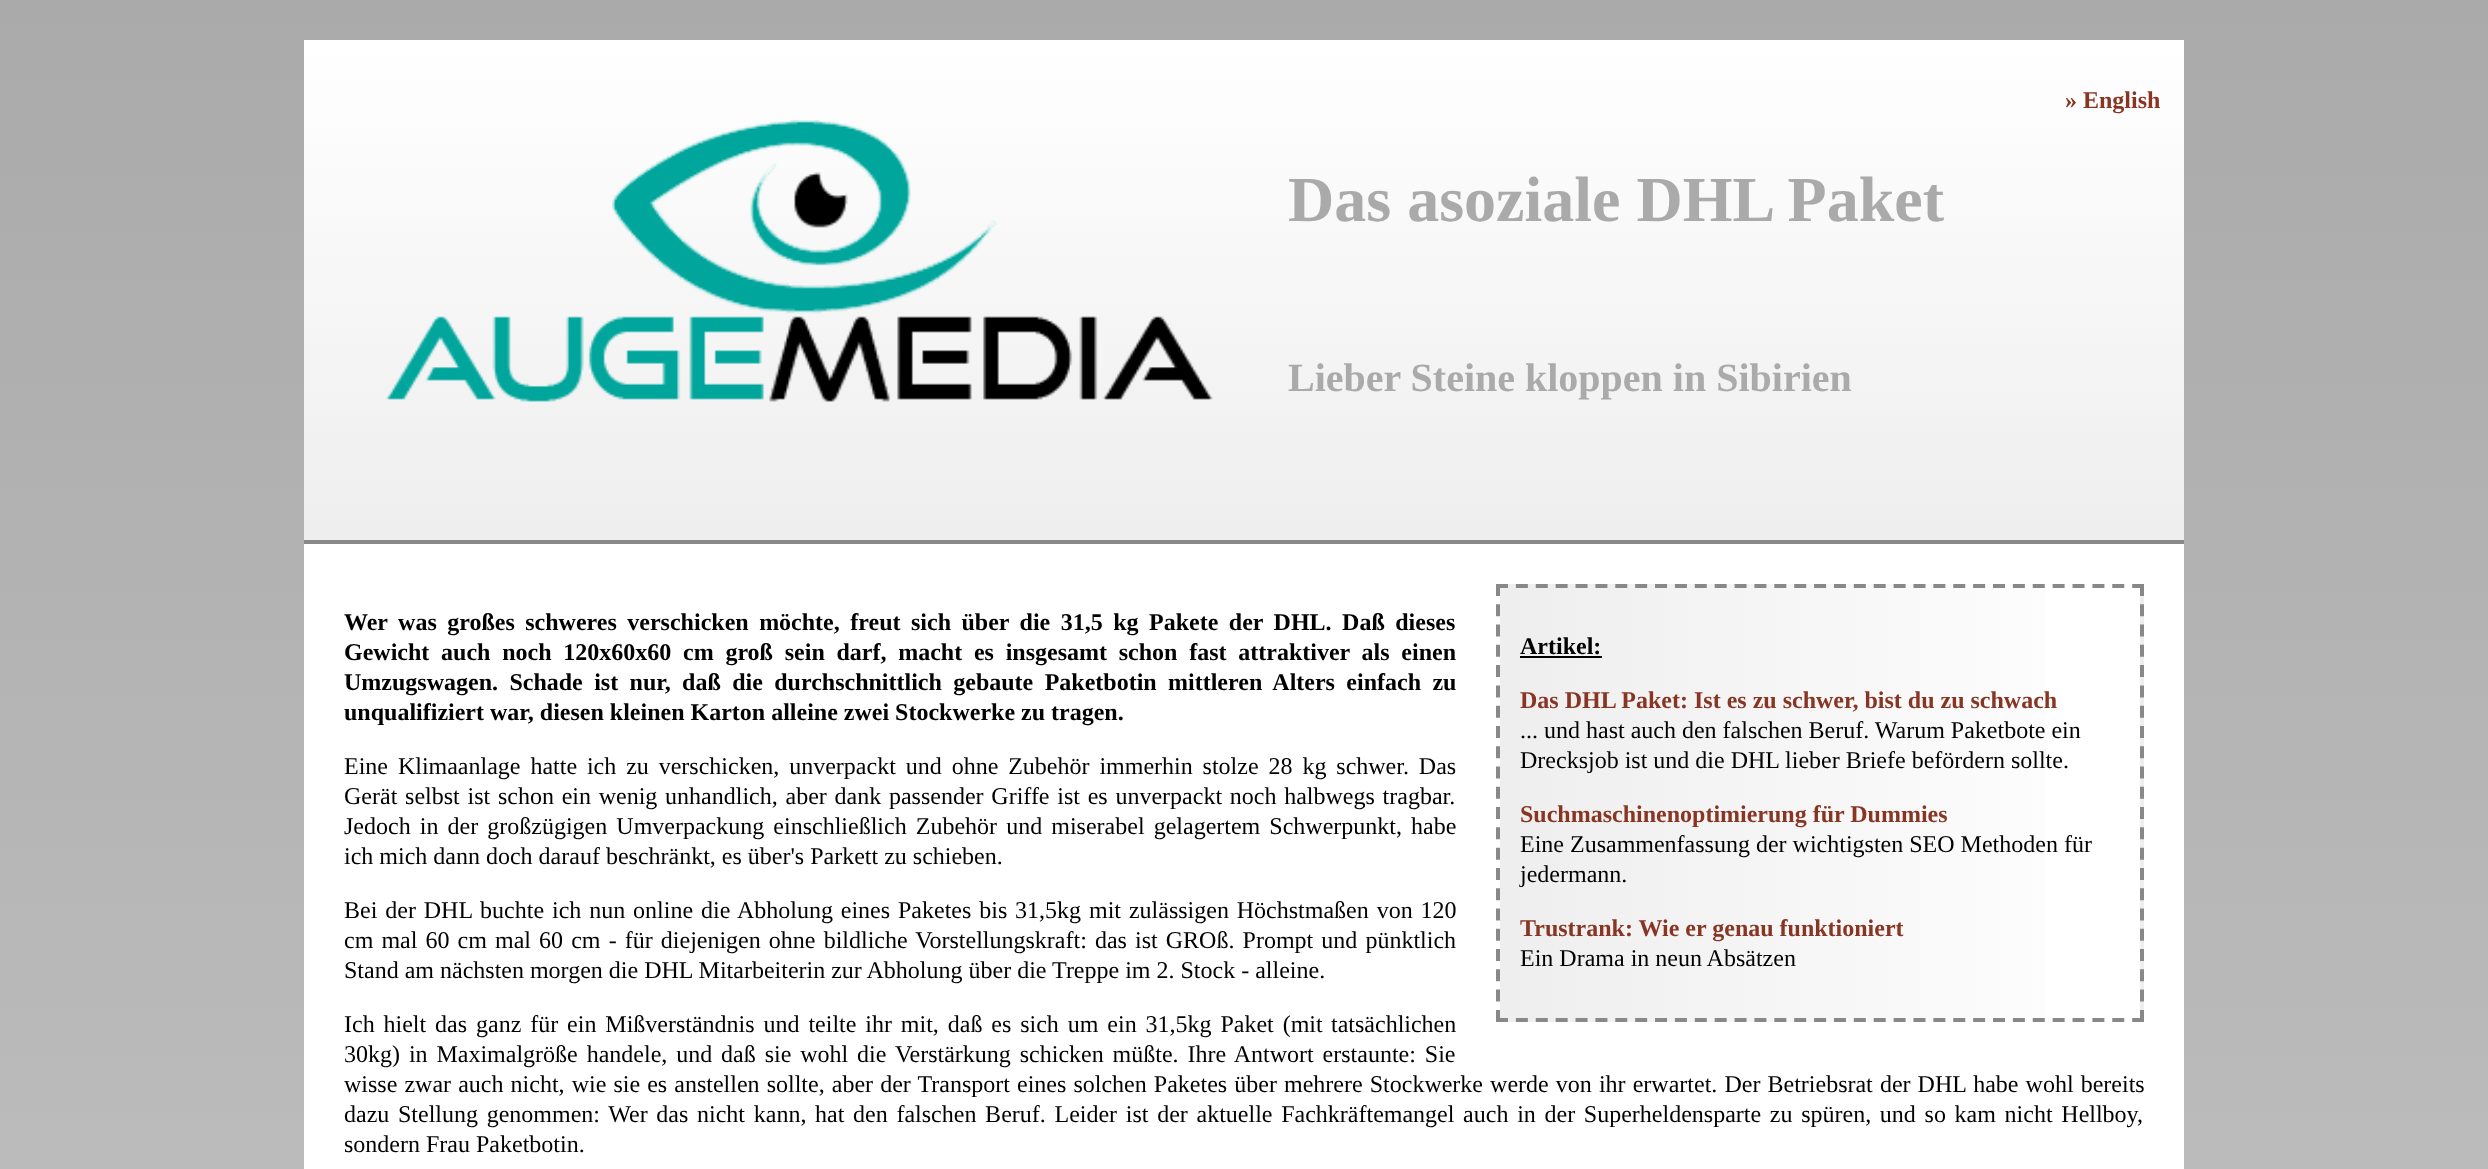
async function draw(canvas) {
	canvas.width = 2488;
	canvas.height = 1169;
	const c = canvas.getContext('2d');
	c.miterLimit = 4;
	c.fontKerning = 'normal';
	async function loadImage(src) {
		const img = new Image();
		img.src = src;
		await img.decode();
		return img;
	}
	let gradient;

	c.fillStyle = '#fff';
	c.fillRect(0, 0, 2488, 1169);
	gradient = c.createLinearGradient(1244, 0, 1244, 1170);
	gradient.addColorStop(0, '#aaa');
	gradient.addColorStop(1, '#bbb');
	c.fillStyle = gradient;
	c.fillRect(0, 0, 2488, 1169);
	gradient = c.createLinearGradient(1244, 40, 1244, 540);
	gradient.addColorStop(0, '#fff');
	gradient.addColorStop(1, '#eee');
	c.fillStyle = gradient;
	c.fillRect(304, 40, 1880, 500);
	c.fillStyle = '#888';
	c.fillRect(304, 540, 1880, 4);
	c.font = 'bold 24px Liberation Serif';
	c.fillStyle = '#883523';
	c.fillText('» English', 2065, 108);
	c.drawImage(await loadImage('img1.png'), 386, 120, 827, 282);
	c.font = 'bold 64px Liberation Serif';
	c.fillStyle = '#aaa';
	c.fillText('Das asoziale DHL Paket', 1288, 221);
	c.font = 'bold 40px Liberation Serif';
	c.fillText('Lieber Steine kloppen in Sibirien', 1288, 391);
	c.fillStyle = '#fff';
	c.fillRect(304, 544, 1880, 625);
	c.wordSpacing = '4.5px';
	c.font = 'bold 24px Liberation Serif';
	c.fillStyle = '#000';
	c.fillText('Wer was großes schweres verschicken möchte, freut sich über die 31,5 kg Pakete der DHL. Daß dieses', 344, 630);
	c.wordSpacing = '5.75px';
	c.fillText('Gewicht auch noch 120x60x60 cm groß sein darf, macht es insgesamt schon fast attraktiver als einen', 344, 660);
	c.wordSpacing = '5.4px';
	c.fillText('Umzugswagen. Schade ist nur, daß die durchschnittlich gebaute Paketbotin mittleren Alters einfach zu', 344, 690);
	c.wordSpacing = '0px';
	c.fillText('unqualifiziert war, diesen kleinen Karton alleine zwei Stockwerke zu tragen.', 344, 720);
	gradient = c.createLinearGradient(1500, 803, 2140, 803);
	gradient.addColorStop(0, '#eee');
	gradient.addColorStop(1, '#fff');
	c.fillStyle = gradient;
	c.fillRect(1500, 584, 546, 438);
	gradient = c.createLinearGradient(2140, 803, 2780, 803);
	gradient.addColorStop(0, '#eee');
	gradient.addColorStop(1, '#fff');
	c.fillStyle = gradient;
	c.fillRect(2140, 596, 4, 414);
	c.beginPath();
	c.moveTo(1496, 586);
	c.lineTo(2144, 586);
	c.strokeStyle = '#888';
	c.lineWidth = 4;
	c.setLineDash([12, 7.88]);
	c.stroke();
	c.beginPath();
	c.moveTo(2142, 584);
	c.lineTo(2142, 1022);
	c.setLineDash([12, 8.28]);
	c.stroke();
	c.beginPath();
	c.moveTo(1496, 1020);
	c.lineTo(2144, 1020);
	c.setLineDash([12, 7.88]);
	c.stroke();
	c.beginPath();
	c.moveTo(1498, 584);
	c.lineTo(1498, 1022);
	c.setLineDash([12, 8.28]);
	c.stroke();
	c.fillStyle = '#000';
	c.fillText('Artikel:', 1520, 654);
	c.fillRect(1520, 656, 82, 2);
	c.fillStyle = '#883523';
	c.fillText('Das DHL Paket: Ist es zu schwer, bist du zu schwach', 1520, 708);
	c.font = '24px Liberation Serif';
	c.fillStyle = '#000';
	c.fillText('... und hast auch den falschen Beruf. Warum Paketbote ein', 1520, 738);
	c.fillText('Drecksjob ist und die DHL lieber Briefe befördern sollte.', 1520, 768);
	c.font = 'bold 24px Liberation Serif';
	c.fillStyle = '#883523';
	c.fillText('Suchmaschinenoptimierung für Dummies', 1520, 822);
	c.font = '24px Liberation Serif';
	c.fillStyle = '#000';
	c.fillText('Eine Zusammenfassung der wichtigsten SEO Methoden für', 1520, 852);
	c.fillText('jedermann.', 1520, 882);
	c.font = 'bold 24px Liberation Serif';
	c.fillStyle = '#883523';
	c.fillText('Trustrank: Wie er genau funktioniert', 1520, 936);
	c.font = '24px Liberation Serif';
	c.fillStyle = '#000';
	c.fillText('Ein Drama in neun Absätzen', 1520, 966);
	c.wordSpacing = '3.9px';
	c.fillText('Eine Klimaanlage hatte ich zu verschicken, unverpackt und ohne Zubehör immerhin stolze 28 kg schwer. Das', 344, 774);
	c.wordSpacing = '1.75px';
	c.fillText('Gerät selbst ist schon ein wenig unhandlich, aber dank passender Griffe ist es unverpackt noch halbwegs tragbar.', 344, 804);
	c.wordSpacing = '3.1px';
	c.fillText('Jedoch in der großzügigen Umverpackung einschließlich Zubehör und miserabel gelagertem Schwerpunkt, habe', 344, 834);
	c.wordSpacing = '0px';
	c.fillText('ich mich dann doch darauf beschränkt, es über\'s Parkett zu schieben.', 344, 864);
	c.wordSpacing = '1.9px';
	c.fillText('Bei der DHL buchte ich nun online die Abholung eines Paketes bis 31,5kg mit zulässigen Höchstmaßen von 120', 344, 918);
	c.wordSpacing = '2.1px';
	c.fillText('cm mal 60 cm mal 60 cm - für diejenigen ohne bildliche Vorstellungskraft: das ist GROß. Prompt und pünktlich', 344, 948);
	c.wordSpacing = '0px';
	c.fillText('Stand am nächsten morgen die DHL Mitarbeiterin zur Abholung über die Treppe im 2. Stock - alleine.', 344, 978);
	c.wordSpacing = '2.9px';
	c.fillText('Ich hielt das ganz für ein Mißverständnis und teilte ihr mit, daß es sich um ein 31,5kg Paket (mit', 344, 1032);
	c.wordSpacing = '0px';
	c.fillText('tatsächlichen', 1331, 1032);
	c.wordSpacing = '2.9px';
	c.fillText('30kg) in Maximalgröße handele, und daß sie wohl die Verstärkung schicken müßte. Ihre Antwort erstaunte: Sie', 344, 1062);
	c.wordSpacing = '1.1px';
	c.fillText('wisse zwar auch nicht, wie sie es anstellen sollte, aber der Transport eines solchen Paketes über mehrere Stockwerke werde von ihr erwartet. Der Betriebsrat der DHL habe wohl bereits', 344, 1092);
	c.wordSpacing = '2.7px';
	c.fillText('dazu Stellung genommen: Wer das nicht kann, hat den falschen Beruf. Leider ist der aktuelle Fachkräftemangel auch in der Superheldensparte zu spüren, und so kam nicht Hellboy,', 344, 1122);
	c.wordSpacing = '0px';
	c.fillText('sondern Frau Paketbotin.', 344, 1152);
}

draw(document.querySelector('canvas'));
